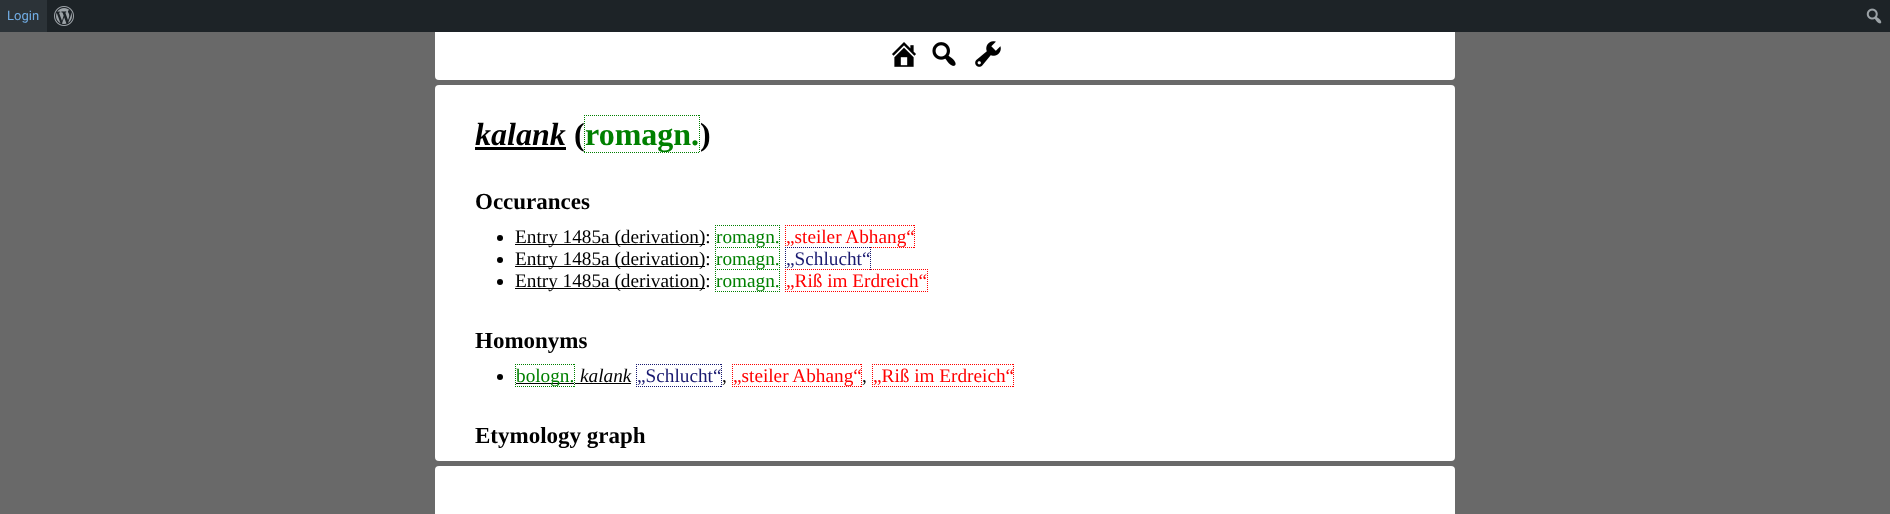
async function draw(canvas) {
	canvas.width = 1890;
	canvas.height = 514;
	const c = canvas.getContext('2d');
	c.miterLimit = 4;
	c.fontKerning = 'normal';
	async function loadImage(src) {
		const img = new Image();
		img.src = src;
		await img.decode();
		return img;
	}

	c.fillStyle = '#696969';
	c.fillRect(0, 0, 1890, 514);
	c.fillStyle = '#1d2327';
	c.fillRect(47, 0, 1843, 32);
	c.fillStyle = '#2c3338';
	c.fillRect(0, 0, 47, 32);
	c.font = '13px Roboto';
	c.fillStyle = '#72aee6';
	c.fillText('Login', 7, 20);
	c.drawImage(await loadImage('img1.png'), 54, 6, 20, 20);
	c.drawImage(await loadImage('img2.png'), 1866, 8, 16, 16);
	c.fillStyle = '#fff';
	c.beginPath();
	c.roundRect(435, 32, 1020, 48, [0, 0, 4, 4]);
	c.fill();
	c.drawImage(await loadImage('img3.png'), 892, 42, 24, 25);
	c.drawImage(await loadImage('img4.png'), 932, 42, 24, 24);
	c.drawImage(await loadImage('img5.png'), 975, 41, 26, 26);
	c.beginPath();
	c.roundRect(435, 85, 1020, 376, 4);
	c.fill();
	c.font = 'italic bold 32px Liberation Serif';
	c.fillStyle = '#000';
	c.fillText('kalank', 475, 145);
	c.fillRect(475, 147, 91, 3);
	c.font = 'bold 32px Liberation Serif';
	c.fillText('(', 574, 145);
	c.beginPath();
	c.moveTo(584, 152.5);
	c.lineTo(700, 152.5);
	c.strokeStyle = '#008000';
	c.setLineDash([1, 1]);
	c.stroke();
	c.fillStyle = '#008000';
	c.fillText('romagn.', 585, 145);
	c.beginPath();
	c.moveTo(584, 115.5);
	c.lineTo(700, 115.5);
	c.stroke();
	c.beginPath();
	c.moveTo(699.5, 115);
	c.lineTo(699.5, 153);
	c.stroke();
	c.beginPath();
	c.moveTo(584.5, 115);
	c.lineTo(584.5, 153);
	c.stroke();
	c.fillStyle = '#000';
	c.fillText(')', 700, 145);
	c.font = 'bold 23px Liberation Serif';
	c.fillText('Occurances', 475, 209);
	c.beginPath();
	c.arc(500, 238, 3, 0, 2 * Math.PI);
	c.fill();
	c.fillRect(515, 244, 190, 1);
	c.font = '19.25px Liberation Serif';
	c.fillText('Entry 1485a (derivation):', 515, 243);
	c.beginPath();
	c.moveTo(715, 225.5);
	c.lineTo(780, 225.5);
	c.stroke();
	c.beginPath();
	c.moveTo(779.5, 225);
	c.lineTo(779.5, 248);
	c.stroke();
	c.beginPath();
	c.moveTo(715, 247.5);
	c.lineTo(780, 247.5);
	c.stroke();
	c.fillStyle = '#008000';
	c.fillText('romagn.', 716, 243);
	c.beginPath();
	c.moveTo(715.5, 225);
	c.lineTo(715.5, 248);
	c.stroke();
	c.beginPath();
	c.moveTo(785, 247.5);
	c.lineTo(915, 247.5);
	c.strokeStyle = '#f00';
	c.stroke();
	c.fillStyle = '#f00';
	c.fillText('„steiler Abhang“', 786, 243);
	c.beginPath();
	c.moveTo(785, 225.5);
	c.lineTo(915, 225.5);
	c.stroke();
	c.beginPath();
	c.moveTo(914.5, 225);
	c.lineTo(914.5, 248);
	c.stroke();
	c.beginPath();
	c.moveTo(785.5, 225);
	c.lineTo(785.5, 248);
	c.stroke();
	c.fillStyle = '#000';
	c.beginPath();
	c.arc(500, 260, 3, 0, 2 * Math.PI);
	c.fill();
	c.fillRect(515, 266, 190, 1);
	c.fillText('Entry 1485a (derivation):', 515, 265);
	c.beginPath();
	c.moveTo(779.5, 247);
	c.lineTo(779.5, 270);
	c.strokeStyle = '#008000';
	c.stroke();
	c.beginPath();
	c.moveTo(715, 269.5);
	c.lineTo(780, 269.5);
	c.stroke();
	c.fillStyle = '#008000';
	c.fillText('romagn.', 716, 265);
	c.beginPath();
	c.moveTo(715.5, 247);
	c.lineTo(715.5, 270);
	c.stroke();
	c.fillStyle = '#191970';
	c.fillText('„Schlucht“', 786, 265);
	c.beginPath();
	c.moveTo(785, 247.5);
	c.lineTo(871, 247.5);
	c.strokeStyle = '#191970';
	c.stroke();
	c.beginPath();
	c.moveTo(870.5, 247);
	c.lineTo(870.5, 270);
	c.stroke();
	c.beginPath();
	c.moveTo(785.5, 247);
	c.lineTo(785.5, 270);
	c.stroke();
	c.fillStyle = '#000';
	c.beginPath();
	c.arc(500, 282, 3, 0, 2 * Math.PI);
	c.fill();
	c.fillRect(515, 288, 190, 1);
	c.fillText('Entry 1485a (derivation):', 515, 287);
	c.beginPath();
	c.moveTo(779.5, 269);
	c.lineTo(779.5, 292);
	c.strokeStyle = '#008000';
	c.stroke();
	c.beginPath();
	c.moveTo(715, 291.5);
	c.lineTo(780, 291.5);
	c.stroke();
	c.fillStyle = '#008000';
	c.fillText('romagn.', 716, 287);
	c.beginPath();
	c.moveTo(715.5, 269);
	c.lineTo(715.5, 292);
	c.stroke();
	c.fillStyle = '#f00';
	c.fillText('„Riß im Erdreich“', 786, 287);
	c.beginPath();
	c.moveTo(785, 269.5);
	c.lineTo(928, 269.5);
	c.strokeStyle = '#f00';
	c.stroke();
	c.beginPath();
	c.moveTo(927.5, 269);
	c.lineTo(927.5, 292);
	c.stroke();
	c.beginPath();
	c.moveTo(785, 291.5);
	c.lineTo(928, 291.5);
	c.stroke();
	c.beginPath();
	c.moveTo(785.5, 269);
	c.lineTo(785.5, 292);
	c.stroke();
	c.font = 'bold 23px Liberation Serif';
	c.fillStyle = '#000';
	c.fillText('Homonyms', 475, 348);
	c.beginPath();
	c.arc(500, 377, 3, 0, 2 * Math.PI);
	c.fill();
	c.beginPath();
	c.moveTo(515, 364.5);
	c.lineTo(575, 364.5);
	c.moveTo(574.5, 364);
	c.lineTo(574.5, 387);
	c.moveTo(515, 386.5);
	c.lineTo(575, 386.5);
	c.moveTo(515.5, 364);
	c.lineTo(515.5, 387);
	c.strokeStyle = '#008000';
	c.stroke();
	c.fillRect(516, 383, 58, 1);
	c.font = '19.25px Liberation Serif';
	c.fillStyle = '#008000';
	c.fillText('bologn.', 516, 382);
	c.fillStyle = '#000';
	c.fillRect(575, 383, 56, 1);
	c.font = 'italic 19.25px Liberation Serif';
	c.fillText('kalank', 580, 382);
	c.font = '19.25px Liberation Serif';
	c.fillStyle = '#191970';
	c.fillText('„Schlucht“', 637, 382);
	c.beginPath();
	c.moveTo(636, 364.5);
	c.lineTo(722, 364.5);
	c.strokeStyle = '#191970';
	c.stroke();
	c.beginPath();
	c.moveTo(721.5, 364);
	c.lineTo(721.5, 387);
	c.stroke();
	c.beginPath();
	c.moveTo(636, 386.5);
	c.lineTo(722, 386.5);
	c.stroke();
	c.beginPath();
	c.moveTo(636.5, 364);
	c.lineTo(636.5, 387);
	c.stroke();
	c.beginPath();
	c.moveTo(732, 386.5);
	c.lineTo(862, 386.5);
	c.strokeStyle = '#f00';
	c.stroke();
	c.fillStyle = '#f00';
	c.fillText('„steiler Abhang“', 733, 382);
	c.beginPath();
	c.moveTo(732, 364.5);
	c.lineTo(862, 364.5);
	c.stroke();
	c.beginPath();
	c.moveTo(861.5, 364);
	c.lineTo(861.5, 387);
	c.stroke();
	c.beginPath();
	c.moveTo(732.5, 364);
	c.lineTo(732.5, 387);
	c.stroke();
	c.fillText('„Riß im Erdreich“', 873, 382);
	c.beginPath();
	c.moveTo(872, 364.5);
	c.lineTo(1014, 364.5);
	c.stroke();
	c.beginPath();
	c.moveTo(1013.5, 364);
	c.lineTo(1013.5, 387);
	c.stroke();
	c.beginPath();
	c.moveTo(872, 386.5);
	c.lineTo(1014, 386.5);
	c.stroke();
	c.beginPath();
	c.moveTo(872.5, 364);
	c.lineTo(872.5, 387);
	c.stroke();
	c.fillStyle = '#000';
	c.fillText(',', 722, 382);
	c.fillText(',', 862, 382);
	c.font = 'bold 23px Liberation Serif';
	c.fillText('Etymology graph', 475, 443);
	c.fillStyle = '#fff';
	c.beginPath();
	c.roundRect(435, 466, 1020, 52, 4);
	c.fill();
}

draw(document.querySelector('canvas'));
